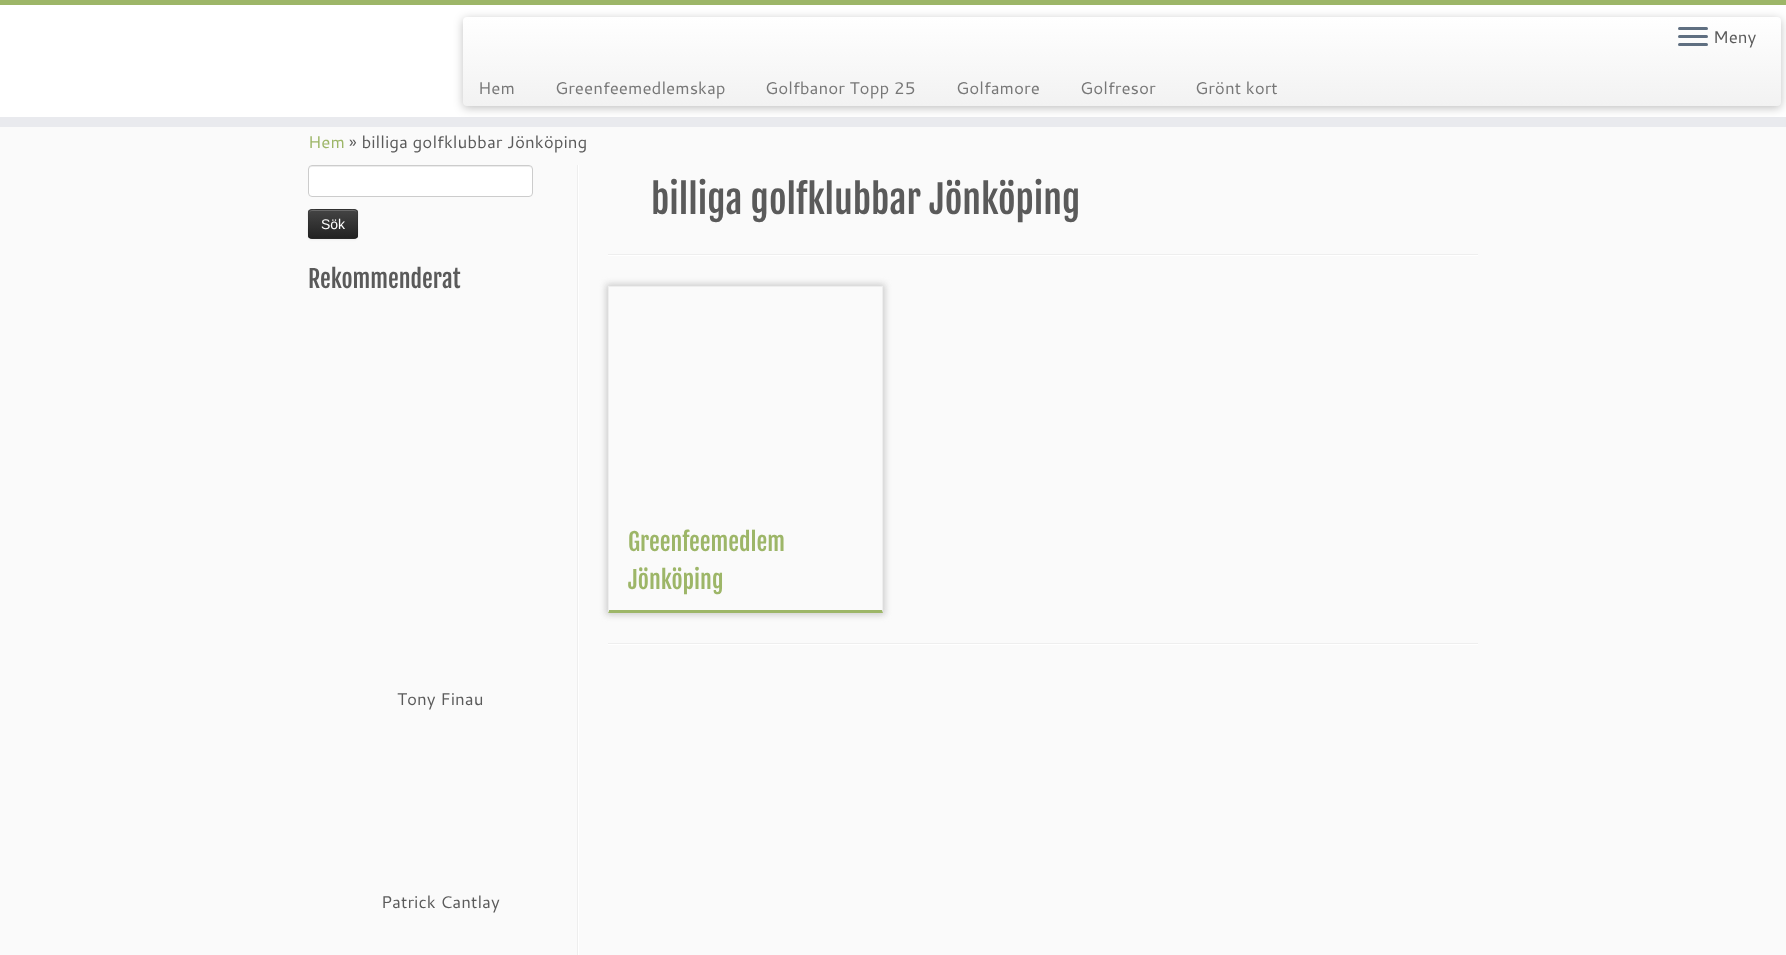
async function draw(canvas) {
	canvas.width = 1786;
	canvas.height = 955;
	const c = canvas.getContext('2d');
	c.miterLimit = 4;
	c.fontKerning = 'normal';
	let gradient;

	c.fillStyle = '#fafafa';
	c.fillRect(0, 0, 1786, 955);
	for (const [x, y, w, h, color] of [
		[0, 5, 1786, 112, '#fff'],
		[0, 0, 1786, 5, '#9db668'],
		[0, 117, 1786, 10, '#e9eaee'],
	]) {
		c.fillStyle = color;
		c.fillRect(x, y, w, h);
	}
	c.fillStyle = '#00000040';
	c.filter = 'blur(5px)';
	c.beginPath();
	c.roundRect(463, 19, 1318, 89, 4);
	c.fill();
	c.filter = 'none';
	gradient = c.createLinearGradient(1122, 17, 1122, 106);
	gradient.addColorStop(0, '#fff');
	gradient.addColorStop(1, '#f2f2f2');
	c.fillStyle = gradient;
	c.beginPath();
	c.roundRect(463, 17, 1318, 89, 4);
	c.fill();
	c.fillStyle = '#5f6f81';
	c.beginPath();
	c.roundRect(1678, 27, 30, 3, 1.5);
	c.fill();
	c.beginPath();
	c.roundRect(1678, 35, 30, 3, 1.5);
	c.fill();
	c.beginPath();
	c.roundRect(1678, 43, 30, 3, 1.5);
	c.fill();
	c.font = '17px Cantarell';
	c.fillStyle = '#5a5a5a';
	c.fillText('Meny', 1713, 43);
	c.fillStyle = '#777';
	for (const [text, x, y] of [
		['Hem', 478, 94],
		['Greenfeemedlemskap', 555, 94],
		['Golfbanor Topp 25', 765, 94],
		['Golfamore', 956, 94],
		['Golfresor', 1080, 94],
		['Grönt kort', 1195, 94],
	]) {
		c.fillText(text, x, y);
	}
	c.fillStyle = '#9db668';
	c.fillText('Hem', 308, 148);
	c.fillStyle = '#5a5a5a';
	c.fillText('» billiga golfklubbar Jönköping', 349, 148);
	c.fillStyle = '#eee';
	c.fillRect(577, 165, 1, 790);
	c.fillStyle = '#fff';
	c.beginPath();
	c.roundRect(308, 165, 225, 32, 4);
	c.fill();
	c.fillStyle = '#ececec';
	c.beginPath();
	c.moveTo(312, 167);
	c.lineTo(529, 167);
	c.bezierCurveTo(531, 167, 532, 168, 532, 170);
	c.lineTo(532, 169);
	c.bezierCurveTo(532, 167, 531, 166, 529, 166);
	c.lineTo(312, 166);
	c.bezierCurveTo(310, 166, 309, 167, 309, 169);
	c.lineTo(309, 170);
	c.bezierCurveTo(309, 168, 310, 167, 312, 167);
	c.closePath();
	c.fill();
	c.beginPath();
	c.roundRect(308.5, 165.5, 224, 31, 3.5);
	c.strokeStyle = '#ccc';
	c.stroke();
	c.fillStyle = '#0000000d';
	c.filter = 'blur(1px)';
	c.beginPath();
	c.roundRect(308, 210, 50, 30, 4);
	c.fill();
	c.filter = 'none';
	c.fillStyle = '#363636';
	c.beginPath();
	c.roundRect(308, 209, 50, 30, 4);
	c.fill();
	c.save();
	c.beginPath();
	c.roundRect(308, 209, 50, 30, 4);
	c.clip();
	gradient = c.createLinearGradient(333, 210, 333, 238);
	gradient.addColorStop(0, '#444');
	gradient.addColorStop(1, '#222');
	c.fillStyle = gradient;
	c.fillRect(308, 210, 50, 28);
	c.restore();
	c.fillStyle = '#696969';
	c.beginPath();
	c.moveTo(312, 211);
	c.lineTo(354, 211);
	c.bezierCurveTo(356, 211, 357, 212, 357, 214);
	c.bezierCurveTo(357, 208, 351, 210, 347, 210);
	c.lineTo(319, 210);
	c.bezierCurveTo(315, 210, 309, 208, 309, 214);
	c.bezierCurveTo(309, 212, 310, 211, 312, 211);
	c.closePath();
	c.fill();
	c.beginPath();
	c.moveTo(356.5, 237.5);
	c.bezierCurveTo(356, 238, 355, 238.5, 354, 238.5);
	c.lineTo(312, 238.5);
	c.bezierCurveTo(311, 238.5, 310, 238, 309.5, 237.5);
	c.strokeStyle = '#00000040';
	c.stroke();
	c.beginPath();
	c.moveTo(309.5, 237.5);
	c.bezierCurveTo(307.5, 235.5, 308.5, 227, 308.5, 224);
	c.bezierCurveTo(308.5, 210, 305.5, 209.5, 319, 209.5);
	c.lineTo(347, 209.5);
	c.bezierCurveTo(360.5, 209.5, 357.5, 210, 357.5, 224);
	c.bezierCurveTo(357.5, 227, 358.5, 235.5, 356.5, 237.5);
	c.strokeStyle = '#0000001a';
	c.stroke();
	c.font = '14px Liberation Sans';
	c.fillStyle = '#fff';
	c.fillText('Sök', 321, 229);
	c.fillRect(578, 165, 1, 790);
	c.font = '24px Fjalla One';
	c.fillStyle = '#5a5a5a';
	c.fillText('Rekommenderat', 308, 288);
	c.font = '17px Cantarell';
	c.fillText('Tony Finau', 397, 705);
	c.fillText('Patrick Cantlay', 381, 908);
	c.font = '38px Fjalla One';
	c.fillText('billiga golfklubbar Jönköping', 651, 214);
	c.fillStyle = '#eee';
	c.fillRect(608, 254, 870, 1);
	c.fillStyle = '#fff';
	c.fillRect(608, 255, 870, 1);
	c.save();
	c.beginPath();
	c.moveTo(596, 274);
	c.lineTo(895, 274);
	c.lineTo(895, 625);
	c.lineTo(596, 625);
	c.closePath();
	c.moveTo(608, 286);
	c.lineTo(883, 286);
	c.lineTo(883, 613);
	c.lineTo(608, 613);
	c.closePath();
	c.clip('evenodd');
	c.fillStyle = '#ccc';
	c.filter = 'blur(3px)';
	c.beginPath();
	c.rect(606, 284, 279, 331);
	c.fill();
	c.filter = 'none';
	c.restore();
	c.fillStyle = '#eee';
	c.fillRect(608, 286, 275, 1);
	c.beginPath();
	c.moveTo(883, 286);
	c.lineTo(883, 613);
	c.lineTo(882, 610);
	c.lineTo(882, 287);
	c.closePath();
	c.fill();
	c.fillStyle = '#9db668';
	c.beginPath();
	c.moveTo(883, 613);
	c.lineTo(608, 613);
	c.lineTo(609, 610);
	c.lineTo(882, 610);
	c.closePath();
	c.fill();
	c.fillStyle = '#eee';
	c.beginPath();
	c.moveTo(608, 613);
	c.lineTo(608, 286);
	c.lineTo(609, 287);
	c.lineTo(609, 610);
	c.closePath();
	c.fill();
	c.font = '24px Fjalla One';
	c.fillStyle = '#9db668';
	c.fillText('Greenfeemedlem', 628, 551);
	c.fillText('Jönköping', 628, 589);
	c.fillStyle = '#eee';
	c.fillRect(608, 643, 870, 1);
	c.fillStyle = '#fff';
	c.fillRect(608, 644, 870, 1);
}

draw(document.querySelector('canvas'));
